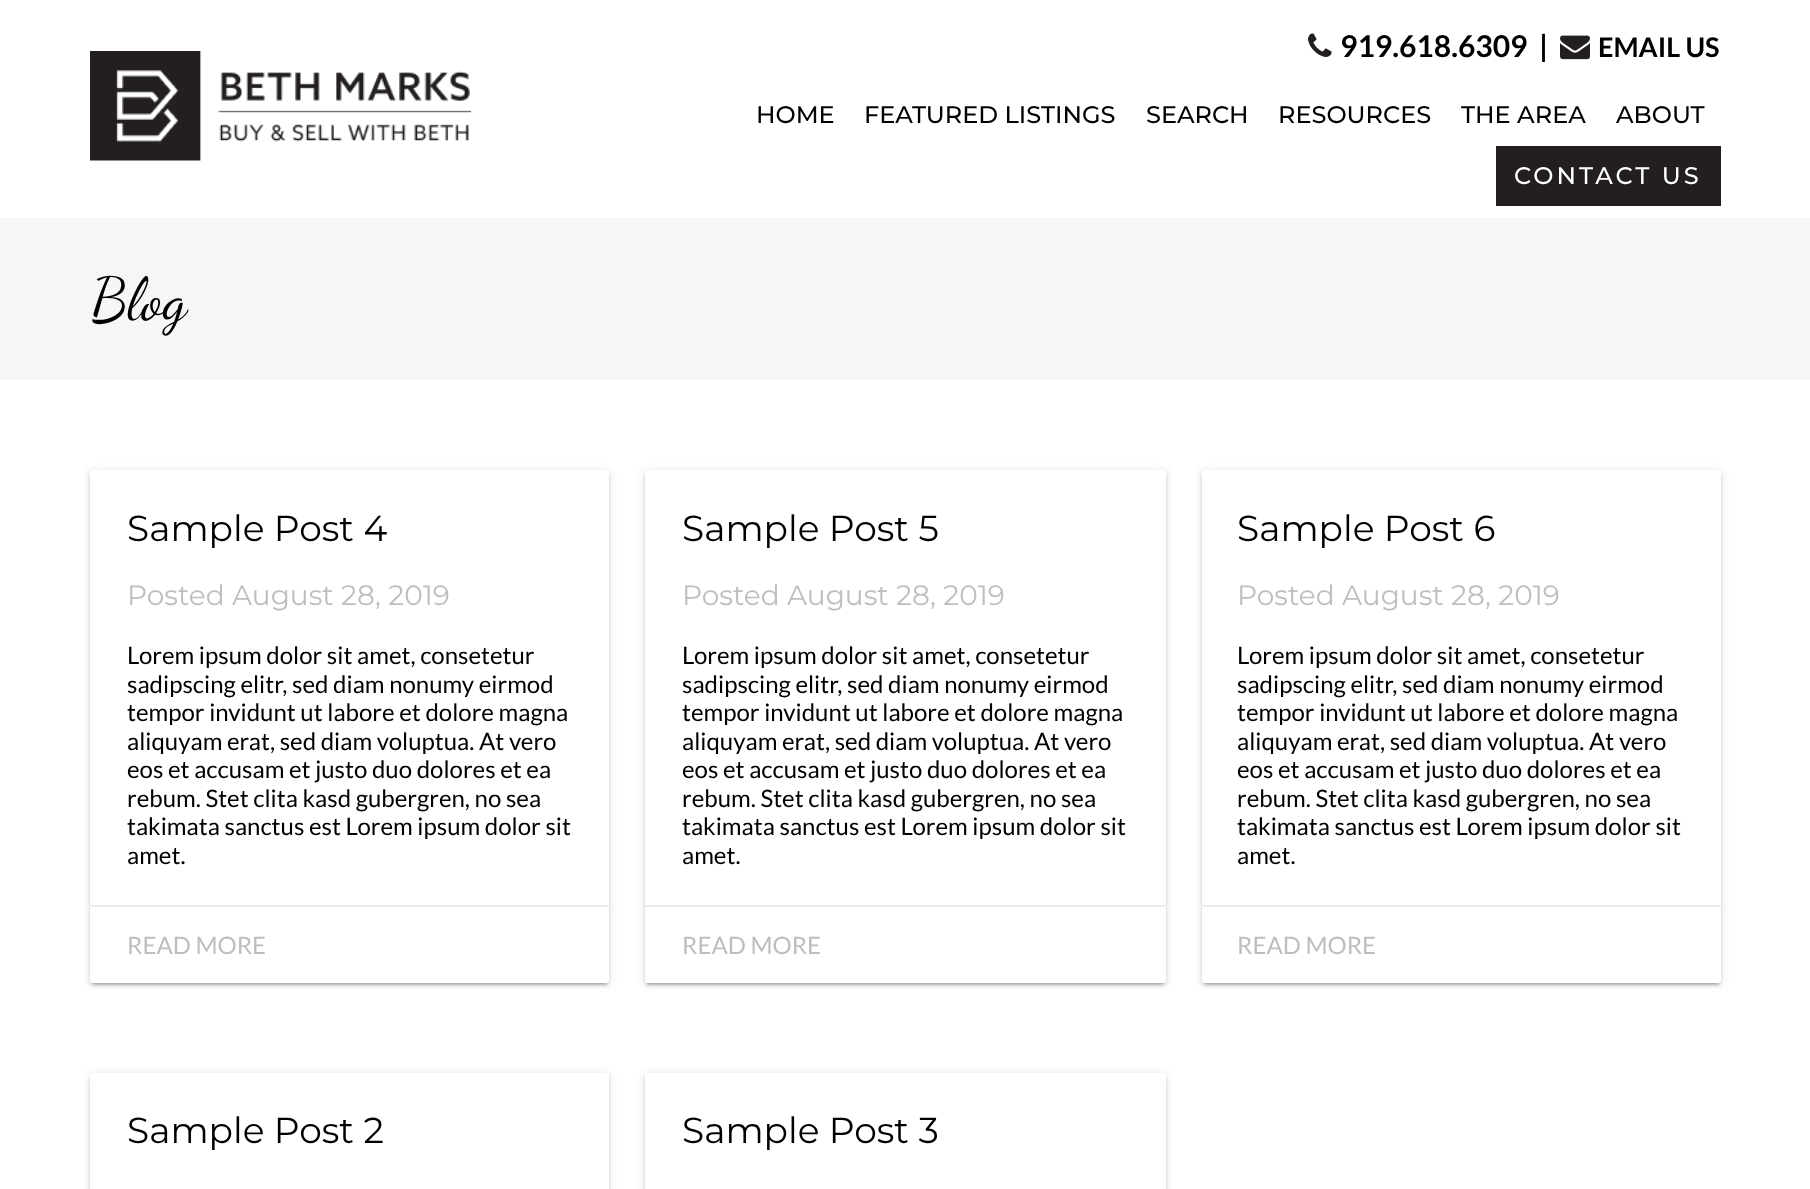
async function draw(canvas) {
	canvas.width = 1810;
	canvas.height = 1189;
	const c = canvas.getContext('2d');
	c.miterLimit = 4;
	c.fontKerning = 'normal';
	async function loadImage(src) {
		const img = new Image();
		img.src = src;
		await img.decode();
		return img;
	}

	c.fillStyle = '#fff';
	c.fillRect(0, 0, 1810, 1189);
	c.drawImage(await loadImage('img1.png'), 90, 51, 381, 110);
	c.drawImage(await loadImage('img2.png'), 1308, 33, 24, 24);
	c.font = 'bold 30px Lato';
	c.fillStyle = '#000';
	c.fillText('919.618.6309', 1340, 57);
	c.fillText('|', 1539, 57);
	c.drawImage(await loadImage('img3.png'), 1560, 35, 30, 25);
	c.font = 'bold 27px Lato';
	c.fillText('EMAIL US', 1598, 57);
	c.font = '500 24px Montserrat';
	for (const [text, x, y] of [
		['HOME', 756, 123],
		['FEATURED LISTINGS', 864, 123],
		['SEARCH', 1146, 123],
		['RESOURCES', 1278, 123],
		['THE AREA', 1461, 123],
		['ABOUT', 1616, 123],
	]) {
		c.fillText(text, x, y);
	}
	c.fillStyle = '#231f20';
	c.fillRect(1496, 146, 225, 60);
	c.letterSpacing = '3px';
	c.fillStyle = '#fff';
	c.fillText('CONTACT US', 1514, 184);
	c.fillStyle = '#f6f6f6';
	c.fillRect(0, 218, 1810, 162);
	c.letterSpacing = '0px';
	c.font = '60px Dancing Script';
	c.fillStyle = '#000';
	c.fillText('Blog', 91, 319);
	c.fillStyle = '#00000033';
	c.filter = 'blur(1px)';
	c.beginPath();
	c.rect(93, 477, 513, 507);
	c.fill();
	c.filter = 'none';
	c.fillStyle = '#0000001f';
	c.filter = 'blur(4px)';
	c.beginPath();
	c.roundRect(90, 471, 519, 513, 3);
	c.fill();
	c.filter = 'none';
	c.fillStyle = '#00000024';
	c.filter = 'blur(1.5px)';
	c.beginPath();
	c.roundRect(90, 473, 519, 513, 3);
	c.fill();
	c.filter = 'none';
	c.fillStyle = '#fff';
	c.beginPath();
	c.roundRect(90, 470, 519, 513, 3);
	c.fill();
	c.font = '36px Montserrat';
	c.fillStyle = '#000';
	c.fillText('Sample Post 4', 127, 541);
	c.font = '28px Montserrat';
	c.fillStyle = '#bebebe';
	c.fillText('Posted August 28, 2019', 127, 605);
	c.font = '24px Lato';
	c.fillStyle = '#000';
	for (const [text, x, y] of [
		['Lorem ipsum dolor sit amet, consetetur', 127, 664],
		['sadipscing elitr, sed diam nonumy eirmod', 127, 693],
		['tempor invidunt ut labore et dolore magna', 127, 721],
		['aliquyam erat, sed diam voluptua. At vero', 127, 750],
		['eos et accusam et justo duo dolores et ea', 127, 778],
		['rebum. Stet clita kasd gubergren, no sea', 127, 807],
		['takimata sanctus est Lorem ipsum dolor sit', 127, 835],
		['amet.', 127, 864],
	]) {
		c.fillText(text, x, y);
	}
	c.fillStyle = '#fff';
	c.beginPath();
	c.roundRect(90, 905, 519, 78, [0, 0, 3, 3]);
	c.fill();
	c.fillStyle = '#ececec';
	c.fillRect(90, 905, 519, 2);
	c.fillStyle = '#bebebe';
	c.fillText('READ MORE', 127, 954);
	c.fillStyle = '#00000033';
	c.filter = 'blur(1px)';
	c.beginPath();
	c.rect(648, 477, 515, 507);
	c.fill();
	c.filter = 'none';
	c.fillStyle = '#0000001f';
	c.filter = 'blur(4px)';
	c.beginPath();
	c.roundRect(645, 471, 521, 513, 3);
	c.fill();
	c.filter = 'none';
	c.fillStyle = '#00000024';
	c.filter = 'blur(1.5px)';
	c.beginPath();
	c.roundRect(645, 473, 521, 513, 3);
	c.fill();
	c.filter = 'none';
	c.fillStyle = '#fff';
	c.beginPath();
	c.roundRect(645, 470, 521, 513, 3);
	c.fill();
	c.font = '36px Montserrat';
	c.fillStyle = '#000';
	c.fillText('Sample Post 5', 682, 541);
	c.font = '28px Montserrat';
	c.fillStyle = '#bebebe';
	c.fillText('Posted August 28, 2019', 682, 605);
	c.font = '24px Lato';
	c.fillStyle = '#000';
	for (const [text, x, y] of [
		['Lorem ipsum dolor sit amet, consetetur', 682, 664],
		['sadipscing elitr, sed diam nonumy eirmod', 682, 693],
		['tempor invidunt ut labore et dolore magna', 682, 721],
		['aliquyam erat, sed diam voluptua. At vero', 682, 750],
		['eos et accusam et justo duo dolores et ea', 682, 778],
		['rebum. Stet clita kasd gubergren, no sea', 682, 807],
		['takimata sanctus est Lorem ipsum dolor sit', 682, 835],
		['amet.', 682, 864],
	]) {
		c.fillText(text, x, y);
	}
	c.fillStyle = '#fff';
	c.beginPath();
	c.roundRect(645, 905, 521, 78, [0, 0, 3, 3]);
	c.fill();
	c.fillStyle = '#ececec';
	c.fillRect(645, 905, 521, 2);
	c.fillStyle = '#bebebe';
	c.fillText('READ MORE', 682, 954);
	c.fillStyle = '#00000033';
	c.filter = 'blur(1px)';
	c.beginPath();
	c.rect(1205, 477, 513, 507);
	c.fill();
	c.filter = 'none';
	c.fillStyle = '#0000001f';
	c.filter = 'blur(4px)';
	c.beginPath();
	c.roundRect(1202, 471, 519, 513, 3);
	c.fill();
	c.filter = 'none';
	c.fillStyle = '#00000024';
	c.filter = 'blur(1.5px)';
	c.beginPath();
	c.roundRect(1202, 473, 519, 513, 3);
	c.fill();
	c.filter = 'none';
	c.fillStyle = '#fff';
	c.beginPath();
	c.roundRect(1202, 470, 519, 513, 3);
	c.fill();
	c.font = '36px Montserrat';
	c.fillStyle = '#000';
	c.fillText('Sample Post 6', 1237, 541);
	c.font = '28px Montserrat';
	c.fillStyle = '#bebebe';
	c.fillText('Posted August 28, 2019', 1237, 605);
	c.font = '24px Lato';
	c.fillStyle = '#000';
	for (const [text, x, y] of [
		['Lorem ipsum dolor sit amet, consetetur', 1237, 664],
		['sadipscing elitr, sed diam nonumy eirmod', 1237, 693],
		['tempor invidunt ut labore et dolore magna', 1237, 721],
		['aliquyam erat, sed diam voluptua. At vero', 1237, 750],
		['eos et accusam et justo duo dolores et ea', 1237, 778],
		['rebum. Stet clita kasd gubergren, no sea', 1237, 807],
		['takimata sanctus est Lorem ipsum dolor sit', 1237, 835],
		['amet.', 1237, 864],
	]) {
		c.fillText(text, x, y);
	}
	c.fillStyle = '#fff';
	c.beginPath();
	c.roundRect(1202, 905, 519, 78, [0, 0, 3, 3]);
	c.fill();
	c.fillStyle = '#ececec';
	c.fillRect(1202, 905, 519, 2);
	c.fillStyle = '#bebebe';
	c.fillText('READ MORE', 1237, 954);
	c.save();
	c.beginPath();
	c.moveTo(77, 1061);
	c.lineTo(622, 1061);
	c.lineTo(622, 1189);
	c.lineTo(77, 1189);
	c.closePath();
	c.moveTo(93, 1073);
	c.lineTo(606, 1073);
	c.bezierCurveTo(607.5, 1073, 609, 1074.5, 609, 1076);
	c.lineTo(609, 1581);
	c.bezierCurveTo(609, 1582.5, 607.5, 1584, 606, 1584);
	c.lineTo(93, 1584);
	c.bezierCurveTo(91.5, 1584, 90, 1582.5, 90, 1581);
	c.lineTo(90, 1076);
	c.bezierCurveTo(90, 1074.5, 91.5, 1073, 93, 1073);
	c.closePath();
	c.clip('evenodd');
	c.fillStyle = '#0000001f';
	c.filter = 'blur(4px)';
	c.beginPath();
	c.roundRect(90, 1074, 519, 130, 3);
	c.fill();
	c.filter = 'none';
	c.restore();
	c.save();
	c.beginPath();
	c.moveTo(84, 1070);
	c.lineTo(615, 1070);
	c.lineTo(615, 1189);
	c.lineTo(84, 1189);
	c.closePath();
	c.moveTo(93, 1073);
	c.lineTo(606, 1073);
	c.bezierCurveTo(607.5, 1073, 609, 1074.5, 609, 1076);
	c.lineTo(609, 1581);
	c.bezierCurveTo(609, 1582.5, 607.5, 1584, 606, 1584);
	c.lineTo(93, 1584);
	c.bezierCurveTo(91.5, 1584, 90, 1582.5, 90, 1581);
	c.lineTo(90, 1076);
	c.bezierCurveTo(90, 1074.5, 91.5, 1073, 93, 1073);
	c.closePath();
	c.clip('evenodd');
	c.fillStyle = '#00000024';
	c.filter = 'blur(1.5px)';
	c.beginPath();
	c.roundRect(90, 1076, 519, 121, 3);
	c.fill();
	c.filter = 'none';
	c.restore();
	c.font = '36px Montserrat';
	c.fillStyle = '#000';
	c.fillText('Sample Post 2', 127, 1143);
	c.fillStyle = '#0000001f';
	c.filter = 'blur(4px)';
	c.beginPath();
	c.roundRect(645, 1074, 521, 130, 3);
	c.fill();
	c.filter = 'none';
	c.fillStyle = '#00000024';
	c.filter = 'blur(1.5px)';
	c.beginPath();
	c.roundRect(645, 1076, 521, 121, 3);
	c.fill();
	c.filter = 'none';
	c.fillStyle = '#fff';
	c.beginPath();
	c.roundRect(645, 1073, 521, 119, 3);
	c.fill();
	c.fillStyle = '#000';
	c.fillText('Sample Post 3', 682, 1143);
}

draw(document.querySelector('canvas'));
